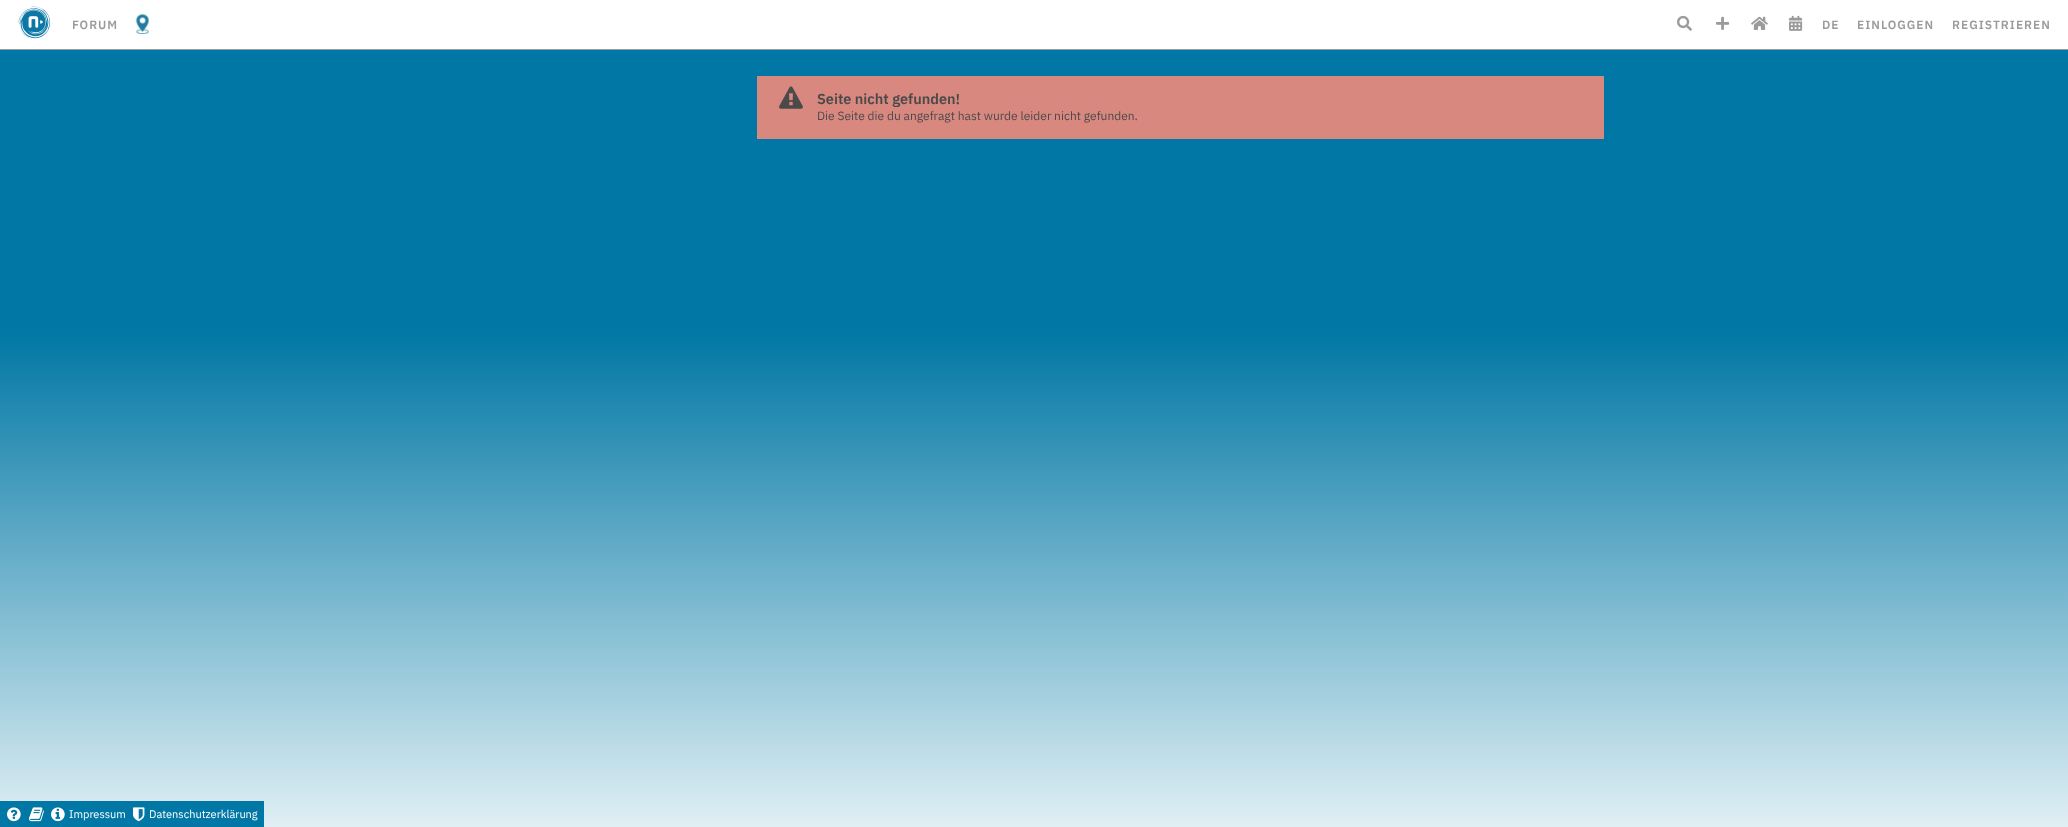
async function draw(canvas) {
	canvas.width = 2068;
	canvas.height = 827;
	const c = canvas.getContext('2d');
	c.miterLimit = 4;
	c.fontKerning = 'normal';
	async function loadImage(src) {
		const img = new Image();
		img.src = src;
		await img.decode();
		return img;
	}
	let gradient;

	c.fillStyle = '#fff';
	c.fillRect(0, 0, 2068, 827);
	gradient = c.createLinearGradient(1034, 0, 1034, 827);
	gradient.addColorStop(0.4, '#0077a4');
	gradient.addColorStop(1, '#e0eff4');
	c.fillStyle = gradient;
	c.fillRect(0, 50, 2068, 777);
	c.fillStyle = '#9b9b9b';
	c.fillRect(0, 49, 2068, 1);
	c.drawImage(await loadImage('img1.png'), 18, 6, 33, 34);
	c.letterSpacing = '1px';
	c.font = '600 12px IBM Plex Sans';
	c.fillText('FORUM', 72, 29);
	c.drawImage(await loadImage('img2.png'), 135, 13, 14, 21);
	c.drawImage(await loadImage('img3.png'), 1677, 15, 15, 16);
	c.drawImage(await loadImage('img4.png'), 1716, 16, 14, 14);
	c.drawImage(await loadImage('img5.png'), 1751, 16, 17, 14);
	c.drawImage(await loadImage('img6.png'), 1789, 15, 14, 16);
	for (const [text, x, y] of [
		['DE', 1822, 29],
		['EINLOGGEN', 1857, 29],
		['REGISTRIEREN', 1952, 29],
	]) {
		c.fillText(text, x, y);
	}
	c.fillStyle = '#d98880';
	c.fillRect(757, 76, 847, 63);
	c.drawImage(await loadImage('img7.png'), 779, 86, 24, 23);
	c.letterSpacing = '0px';
	c.font = '600 14.5px IBM Plex Sans';
	c.fillStyle = '#4a4a4a';
	c.fillText('Seite nicht gefunden!', 817, 104);
	c.font = '12px IBM Plex Sans';
	c.fillText('Die Seite die du angefragt hast wurde leider nicht gefunden.', 817, 120);
	c.fillStyle = '#0077a4';
	c.fillRect(0, 801, 264, 26);
	c.drawImage(await loadImage('img8.png'), 7, 807, 14, 15);
	c.drawImage(await loadImage('img9.png'), 29, 807, 15, 15);
	c.drawImage(await loadImage('img10.png'), 51, 807, 14, 15);
	c.font = '11px IBM Plex Sans';
	c.fillStyle = '#fff';
	c.fillText('Impressum', 69, 818);
	c.drawImage(await loadImage('img11.png'), 133, 807, 12, 15);
	c.fillText('Datenschutzerklärung', 149, 818);
}

draw(document.querySelector('canvas'));
